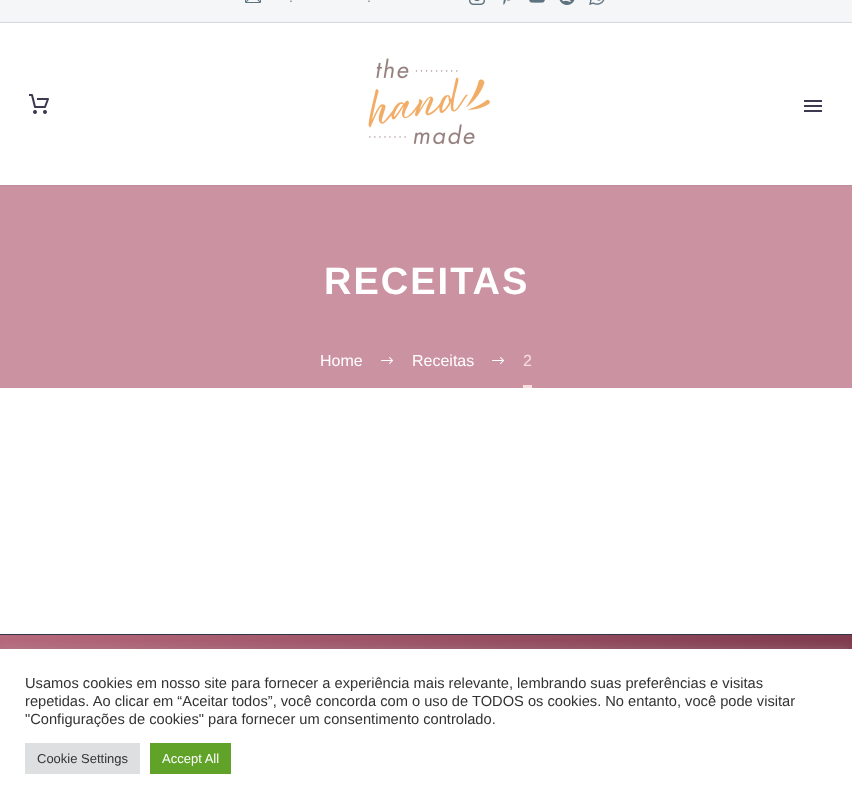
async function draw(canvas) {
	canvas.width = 852;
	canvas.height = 804;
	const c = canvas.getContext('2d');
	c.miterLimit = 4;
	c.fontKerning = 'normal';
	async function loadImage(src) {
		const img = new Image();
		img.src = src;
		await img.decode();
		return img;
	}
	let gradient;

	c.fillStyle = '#fff';
	c.fillRect(0, 0, 852, 804);
	c.fillStyle = '#f4f6f7';
	c.fillRect(0, 0, 852, 22);
	c.fillStyle = '#dfe5e8';
	c.fillRect(0, 22, 852, 1);
	c.drawImage(await loadImage('img1.png'), 245, 0, 16, 3);
	c.font = '14px Liberation Sans';
	c.fillStyle = '#967d85';
	c.fillText('.', 289, 2);
	c.fillText('.', 367, 2);
	c.drawImage(await loadImage('img2.png'), 469, 0, 16, 5);
	c.drawImage(await loadImage('img3.png'), 503, 0, 8, 5);
	c.drawImage(await loadImage('img4.png'), 529, 0, 16, 3);
	c.drawImage(await loadImage('img5.png'), 559, 0, 16, 5);
	c.drawImage(await loadImage('img6.png'), 589, 0, 16, 5);
	c.fillStyle = '#cb92a1';
	c.fillRect(0, 185, 852, 203);
	c.save();
	c.beginPath();
	c.moveTo(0, 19);
	c.lineTo(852, 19);
	c.lineTo(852, 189);
	c.lineTo(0, 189);
	c.closePath();
	c.moveTo(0, 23);
	c.lineTo(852, 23);
	c.lineTo(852, 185);
	c.lineTo(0, 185);
	c.closePath();
	c.clip('evenodd');
	c.fillStyle = '#38455433';
	c.filter = 'blur(1px)';
	c.beginPath();
	c.rect(0, 23, 852, 162);
	c.fill();
	c.filter = 'none';
	c.restore();
	c.drawImage(await loadImage('img7.png'), 29, 94, 20, 20);
	c.drawImage(await loadImage('img8.png'), 368, 58, 122, 87);
	for (const [x, y, w, h, color] of [
		[804, 100, 18, 2, '#3c3950'],
		[804, 105, 18, 2, '#3c3950'],
		[804, 110, 18, 2, '#3c3950'],
	]) {
		c.fillStyle = color;
		c.fillRect(x, y, w, h);
	}
	c.letterSpacing = '2px';
	c.font = 'bold 38px Liberation Sans';
	c.fillStyle = '#fff';
	c.fillText('RECEITAS', 324, 294);
	c.letterSpacing = '0px';
	c.font = '16px Liberation Sans';
	c.fillText('Home', 320, 366);
	c.drawImage(await loadImage('img9.png'), 381, 357, 12, 7);
	c.fillText('Receitas', 412, 366);
	c.drawImage(await loadImage('img9.png'), 492, 357, 12, 7);
	c.fillStyle = '#f9dede';
	c.fillRect(523, 385, 9, 3);
	c.fillText('2', 523, 366);
	gradient = c.createLinearGradient(0, 749, 852, 749);
	gradient.addColorStop(0, '#b6687c');
	gradient.addColorStop(1, '#803b4e');
	c.fillStyle = gradient;
	c.fillRect(0, 635, 852, 14);
	c.fillStyle = '#313646';
	c.fillRect(0, 634, 852, 1);
	c.fillStyle = '#acabab4d';
	c.filter = 'blur(5px)';
	c.beginPath();
	c.rect(0, 648, 852, 155);
	c.fill();
	c.filter = 'none';
	c.fillStyle = '#fff';
	c.fillRect(0, 649, 852, 155);
	c.font = '14.67px Liberation Sans';
	c.fillStyle = '#333';
	for (const [text, x, y] of [
		['Usamos cookies em nosso site para fornecer a experiência mais relevante, lembrando suas preferências e visitas', 25, 688],
		['repetidas. Ao clicar em “Aceitar todos”, você concorda com o uso de TODOS os cookies. No entanto, você pode visitar', 25, 706],
		['"Configurações de cookies" para fornecer um consentimento controlado.', 25, 724],
	]) {
		c.fillText(text, x, y);
	}
	c.fillStyle = '#dedfe0';
	c.fillRect(25, 743, 115, 31);
	c.font = '13px Liberation Sans';
	c.fillStyle = '#333';
	c.fillText('Cookie Settings', 37, 763);
	c.fillStyle = '#61a229';
	c.fillRect(150, 743, 81, 31);
	c.fillStyle = '#fff';
	c.fillText('Accept All', 162, 763);
}

draw(document.querySelector('canvas'));
